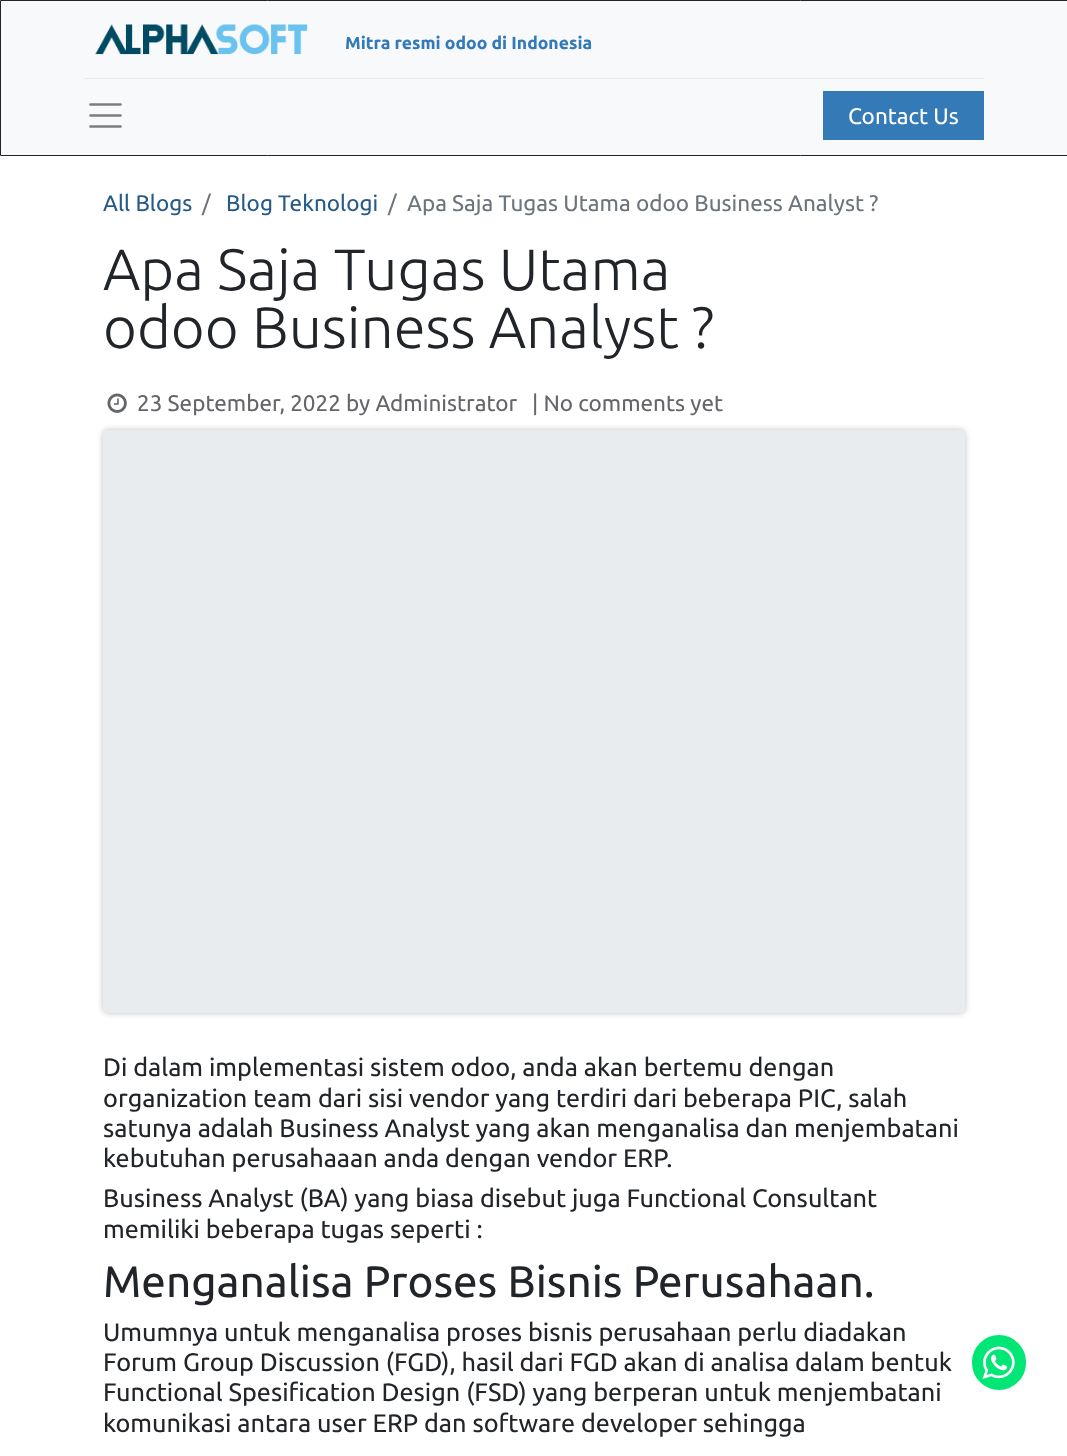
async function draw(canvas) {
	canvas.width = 1067;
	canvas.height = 1456;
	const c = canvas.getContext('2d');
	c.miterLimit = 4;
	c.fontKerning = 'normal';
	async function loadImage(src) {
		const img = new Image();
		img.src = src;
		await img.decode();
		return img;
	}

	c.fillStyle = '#fff';
	c.fillRect(0, 0, 1067, 1456);
	c.fillStyle = '#f8f9fa';
	c.beginPath();
	c.rect(0.5, 0.5, 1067, 155);
	c.fill();
	c.strokeStyle = '#212529';
	c.stroke();
	c.drawImage(await loadImage('img1.png'), 95, 24, 213, 31);
	c.font = 'bold 17.5px Ubuntu';
	c.fillStyle = '#337ab7';
	c.fillText('Mitra resmi odoo di Indonesia', 345, 49);
	c.fillStyle = '#e9ecef';
	c.fillRect(84, 78, 900, 1);
	c.beginPath();
	c.moveTo(90.5, 104.5);
	c.lineTo(120.5, 104.5);
	c.moveTo(90.5, 115.5);
	c.lineTo(120.5, 115.5);
	c.moveTo(90.5, 126.5);
	c.lineTo(120.5, 126.5);
	c.strokeStyle = '#7c7d7d';
	c.lineWidth = 2.7;
	c.lineCap = 'round';
	c.stroke();
	c.fillStyle = '#337ab7';
	c.fillRect(823, 91, 161, 49);
	c.font = '22.5px Ubuntu';
	c.fillStyle = '#fff';
	c.fillText('Contact Us', 848, 124);
	c.fillStyle = '#265a87';
	c.fillText('All Blogs', 103, 211);
	c.fillStyle = '#6c757d';
	c.fillText('/', 202, 211);
	c.fillStyle = '#265a87';
	c.fillText('Blog Teknologi', 226, 211);
	c.fillStyle = '#6c757d';
	c.fillText('/', 388, 211);
	c.fillText('Apa Saja Tugas Utama odoo Business Analyst ?', 407, 211);
	c.font = '300 58.25px Ubuntu';
	c.fillStyle = '#212529';
	c.fillText('Apa Saja Tugas Utama', 103, 290);
	c.fillText('odoo Business Analyst ?', 103, 348);
	c.drawImage(await loadImage('img2.png'), 107, 393, 20, 20);
	c.font = '22.5px Ubuntu';
	c.fillStyle = '#646669';
	c.fillText('23 September, 2022 by Administrator', 137, 411);
	c.fillText('| No comments yet', 532, 411);
	c.fillStyle = '#00000040';
	c.filter = 'blur(3px)';
	c.beginPath();
	c.roundRect(103, 430, 862, 583, 5);
	c.fill();
	c.filter = 'none';
	c.fillStyle = '#e9ecef';
	c.beginPath();
	c.roundRect(103, 430, 862, 583, 5);
	c.fill();
	c.font = '25.25px Ubuntu';
	c.fillStyle = '#212529';
	for (const [text, x, y] of [
		['Di dalam implementasi sistem odoo, anda akan bertemu dengan', 103, 1076],
		['organization team dari sisi vendor yang terdiri dari beberapa PIC, salah', 103, 1107],
		['satunya adalah Business Analyst yang akan menganalisa dan menjembatani', 103, 1137],
		['kebutuhan perusahaaan anda dengan vendor ERP.', 103, 1167],
		['Business Analyst (BA) yang biasa disebut juga Functional Consultant', 103, 1207],
		['memiliki beberapa tugas seperti :', 103, 1238],
	]) {
		c.fillText(text, x, y);
	}
	c.font = '44px Ubuntu';
	c.fillText('Menganalisa Proses Bisnis Perusahaan.', 103, 1297);
	c.font = '25.25px Ubuntu';
	for (const [text, x, y] of [
		['Umumnya untuk menganalisa proses bisnis perusahaan perlu diadakan', 103, 1341],
		['Forum Group Discussion (FGD), hasil dari FGD akan di analisa dalam bentuk', 103, 1371],
		['Functional Spesification Design (FSD) yang berperan untuk menjembatani', 103, 1401],
		['komunikasi antara user ERP dan software developer sehingga', 103, 1432],
	]) {
		c.fillText(text, x, y);
	}
	c.fillStyle = '#01e675';
	c.beginPath();
	c.roundRect(970, 1333, 58, 59, 29);
	c.fill();
	c.strokeStyle = '#fff';
	c.lineWidth = 4;
	c.stroke();
	c.drawImage(await loadImage('img3.png'), 982, 1346, 33, 33);
}

draw(document.querySelector('canvas'));
